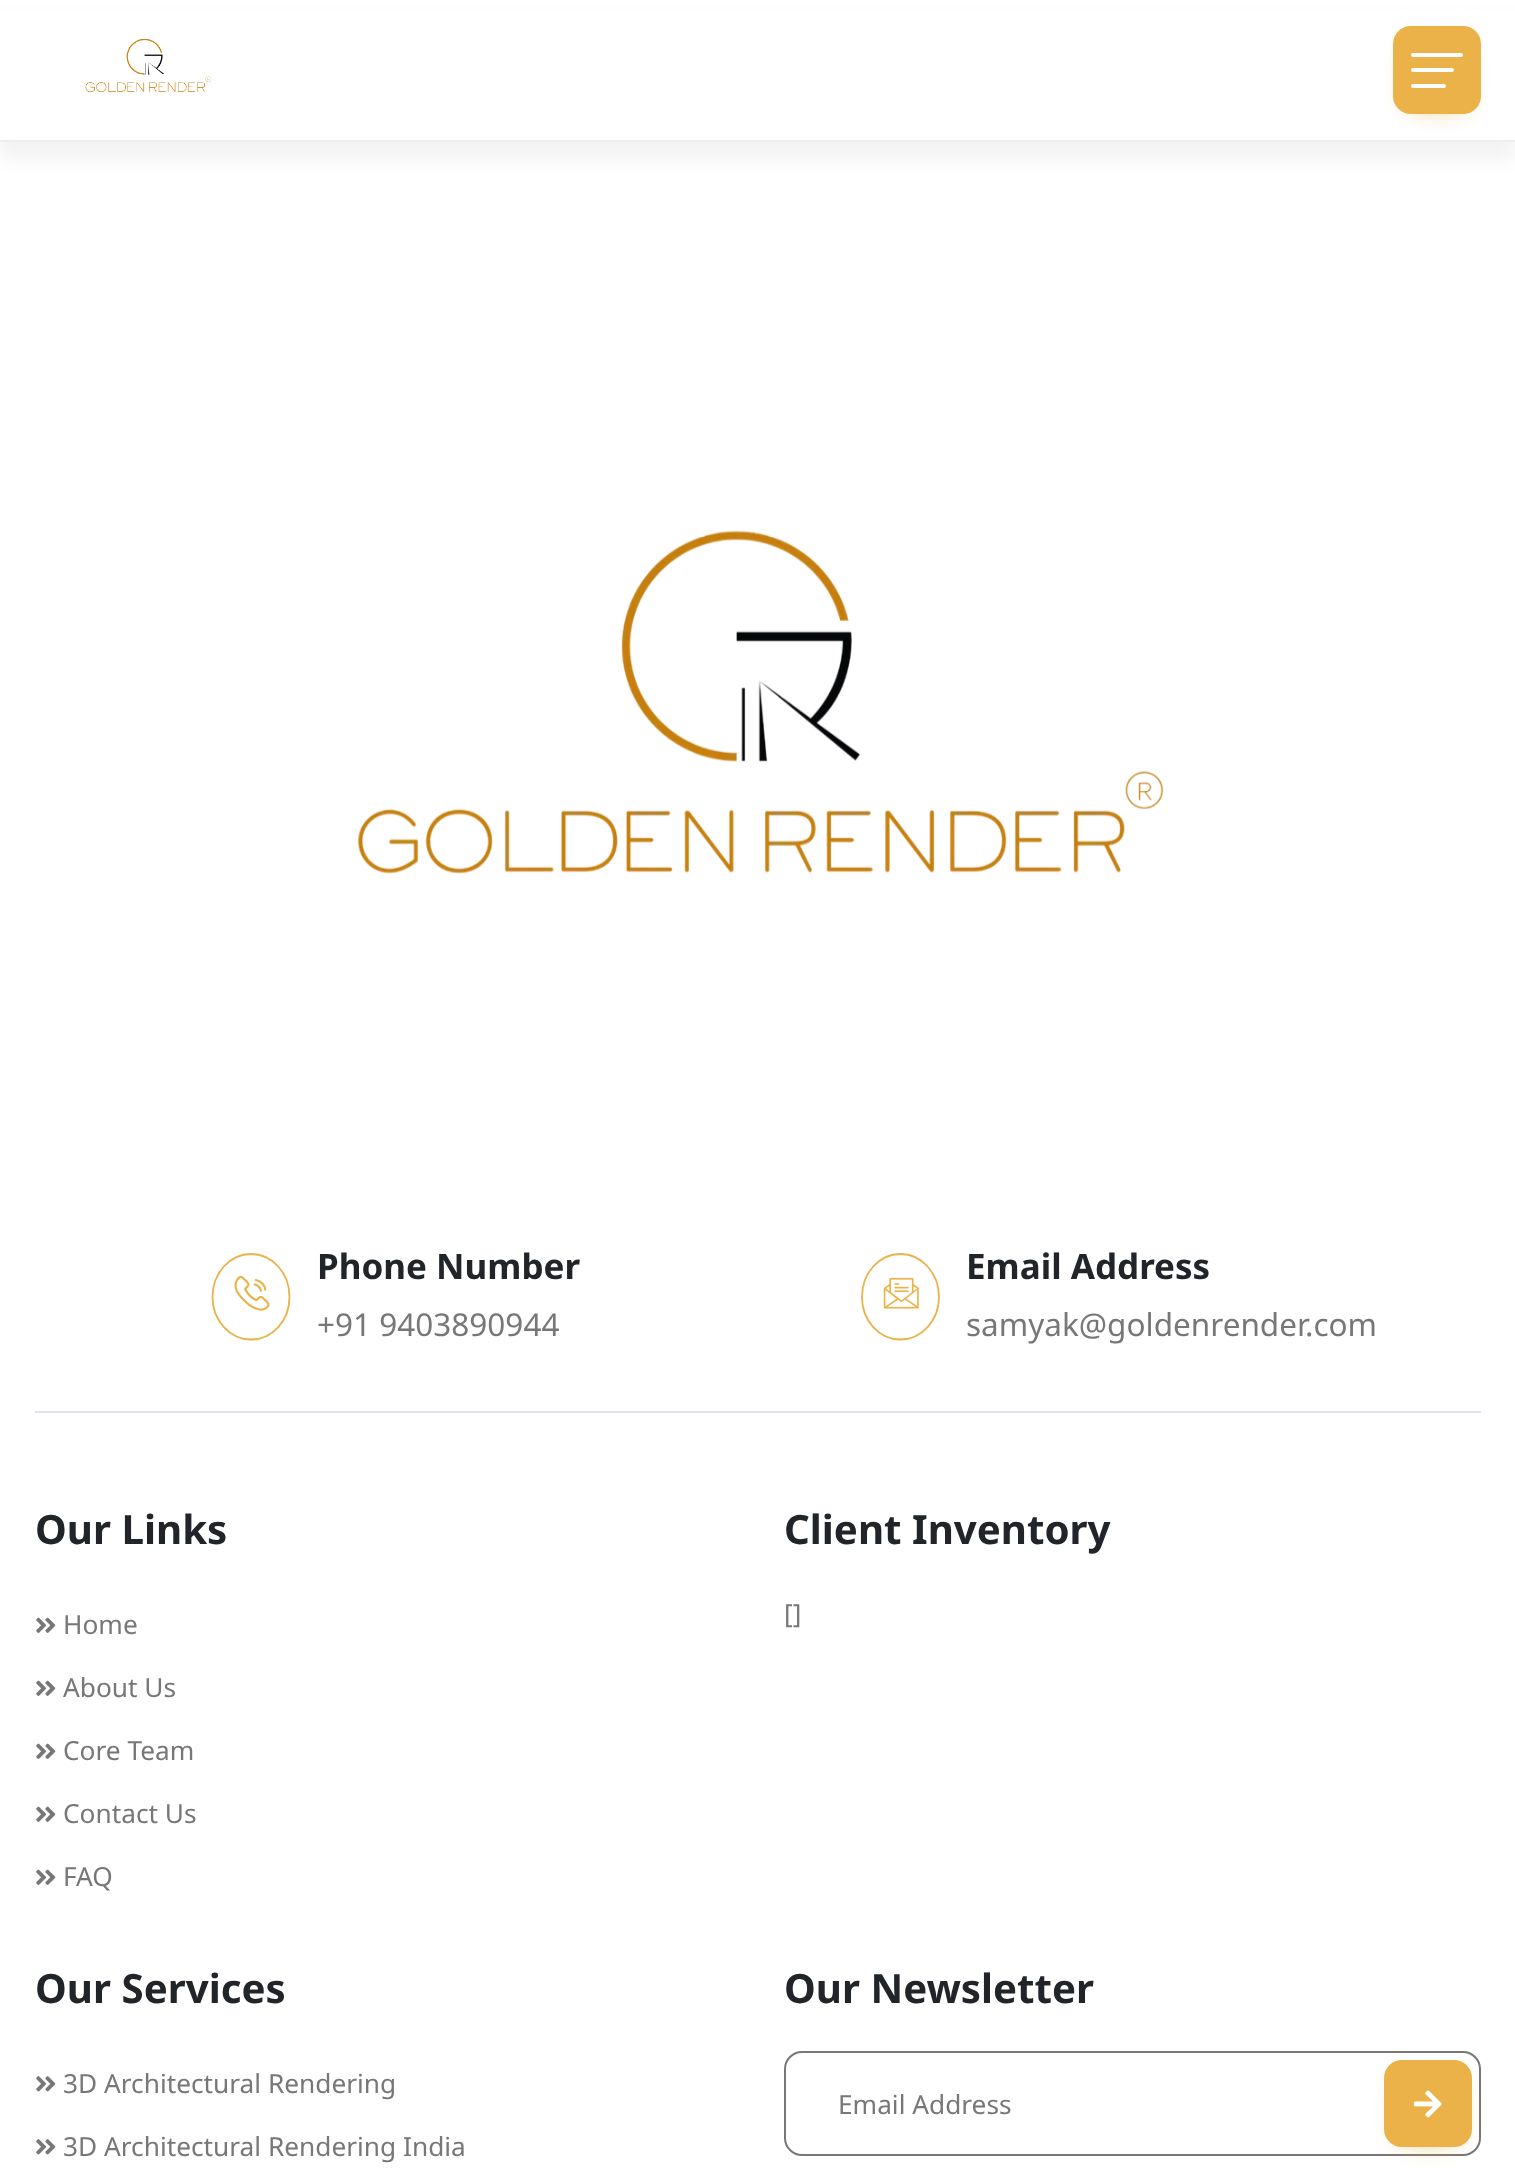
async function draw(canvas) {
	canvas.width = 1515;
	canvas.height = 2184;
	const c = canvas.getContext('2d');
	c.miterLimit = 4;
	c.fontKerning = 'normal';
	async function loadImage(src) {
		const img = new Image();
		img.src = src;
		await img.decode();
		return img;
	}

	c.fillStyle = '#fff';
	c.fillRect(0, 0, 1515, 2184);
	c.fillStyle = '#0000000d';
	c.filter = 'blur(9px)';
	c.beginPath();
	c.rect(0, 18, 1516, 141);
	c.fill();
	c.filter = 'none';
	c.fillStyle = '#fff';
	c.fillRect(0, 10, 1515, 130);
	c.fillStyle = '#eee';
	c.fillRect(0, 140, 1515, 2);
	c.drawImage(await loadImage('img1.png'), 85, 38, 127, 54);
	c.fillStyle = '#eab248';
	c.filter = 'blur(13px)';
	c.beginPath();
	c.rect(1411, 53, 52, 52);
	c.fill();
	c.filter = 'none';
	c.beginPath();
	c.roundRect(1393, 26, 88, 88, 18);
	c.fill();
	c.fillStyle = '#fff';
	c.beginPath();
	c.roundRect(1411, 53, 52, 4, 2);
	c.fill();
	c.beginPath();
	c.roundRect(1411, 68, 43, 4, 2);
	c.fill();
	c.beginPath();
	c.roundRect(1411, 84, 35, 4, 2);
	c.fill();
	c.fillStyle = '#e1e1f0';
	c.fillRect(35, 1411, 1446, 2);
	c.drawImage(await loadImage('img2.png'), 357, 530, 807, 344);
	c.beginPath();
	c.moveTo(251, 1254);
	c.bezierCurveTo(272.5, 1254, 289.5, 1273, 289.5, 1297);
	c.bezierCurveTo(289.5, 1320.5, 272.5, 1339.5, 251, 1339.5);
	c.bezierCurveTo(230, 1339.5, 212.5, 1320.5, 212.5, 1297);
	c.bezierCurveTo(212.5, 1273, 230, 1254, 251, 1254);
	c.closePath();
	c.strokeStyle = '#eab248';
	c.lineWidth = 1.8;
	c.stroke();
	c.drawImage(await loadImage('img3.png'), 234, 1275, 36, 36);
	c.font = 'bold 35px Noto Sans';
	c.fillStyle = '#212529';
	c.fillText('Phone Number', 317, 1279);
	c.font = '31.5px Noto Sans';
	c.fillStyle = '#777';
	c.fillText('+91 9403890944', 317, 1336);
	c.beginPath();
	c.moveTo(900.5, 1254);
	c.bezierCurveTo(921.5, 1254, 939, 1273, 939, 1297);
	c.bezierCurveTo(939, 1320.5, 921.5, 1339.5, 900.5, 1339.5);
	c.bezierCurveTo(879, 1339.5, 862, 1320.5, 862, 1297);
	c.bezierCurveTo(862, 1273, 879, 1254, 900.5, 1254);
	c.closePath();
	c.stroke();
	c.drawImage(await loadImage('img4.png'), 883, 1277, 36, 32);
	c.font = 'bold 35px Noto Sans';
	c.fillStyle = '#212529';
	c.fillText('Email Address', 966, 1279);
	c.font = '31.5px Noto Sans';
	c.fillStyle = '#777';
	c.fillText('samyak@goldenrender.com', 966, 1336);
	c.font = 'bold 40.25px Noto Sans';
	c.fillStyle = '#212529';
	c.fillText('Our Links', 35, 1544);
	c.drawImage(await loadImage('img5.png'), 36, 1617, 20, 16);
	c.font = '26.25px Noto Sans';
	c.fillStyle = '#777';
	c.fillText('Home', 63, 1634);
	c.drawImage(await loadImage('img5.png'), 36, 1680, 20, 16);
	c.fillText('About Us', 63, 1697);
	c.drawImage(await loadImage('img5.png'), 36, 1743, 20, 16);
	c.fillText('Core Team', 63, 1760);
	c.drawImage(await loadImage('img5.png'), 36, 1806, 20, 16);
	c.fillText('Contact Us', 63, 1823);
	c.drawImage(await loadImage('img5.png'), 36, 1869, 20, 16);
	c.fillText('FAQ', 63, 1886);
	c.font = 'bold 40.25px Noto Sans';
	c.fillStyle = '#212529';
	c.fillText('Client Inventory', 784, 1544);
	c.font = '26.25px Noto Sans';
	c.fillStyle = '#777';
	c.fillText('[]', 784, 1623);
	c.font = 'bold 40.25px Noto Sans';
	c.fillStyle = '#212529';
	c.fillText('Our Services', 35, 2003);
	c.drawImage(await loadImage('img6.png'), 36, 2076, 20, 16);
	c.font = '26.25px Noto Sans';
	c.fillStyle = '#777';
	c.fillText('3D Architectural Rendering', 63, 2093);
	c.drawImage(await loadImage('img6.png'), 36, 2139, 20, 16);
	c.fillText('3D Architectural Rendering India', 63, 2156);
	c.font = 'bold 40.25px Noto Sans';
	c.fillStyle = '#212529';
	c.fillText('Our Newsletter', 784, 2003);
	c.beginPath();
	c.roundRect(785, 2052, 695, 103, 17);
	c.strokeStyle = '#777';
	c.lineWidth = 2;
	c.stroke();
	c.font = '26.25px Noto Sans';
	c.fillStyle = '#777';
	c.fillText('Email Address', 838, 2114);
	c.fillStyle = '#eab248';
	c.filter = 'blur(13px)';
	c.beginPath();
	c.rect(1402, 2086, 52, 53);
	c.fill();
	c.filter = 'none';
	c.beginPath();
	c.roundRect(1385, 2061, 86, 85, 17);
	c.fill();
	c.strokeStyle = '#eab248';
	c.stroke();
	c.drawImage(await loadImage('img7.png'), 1414, 2090, 28, 28);
}

draw(document.querySelector('canvas'));
